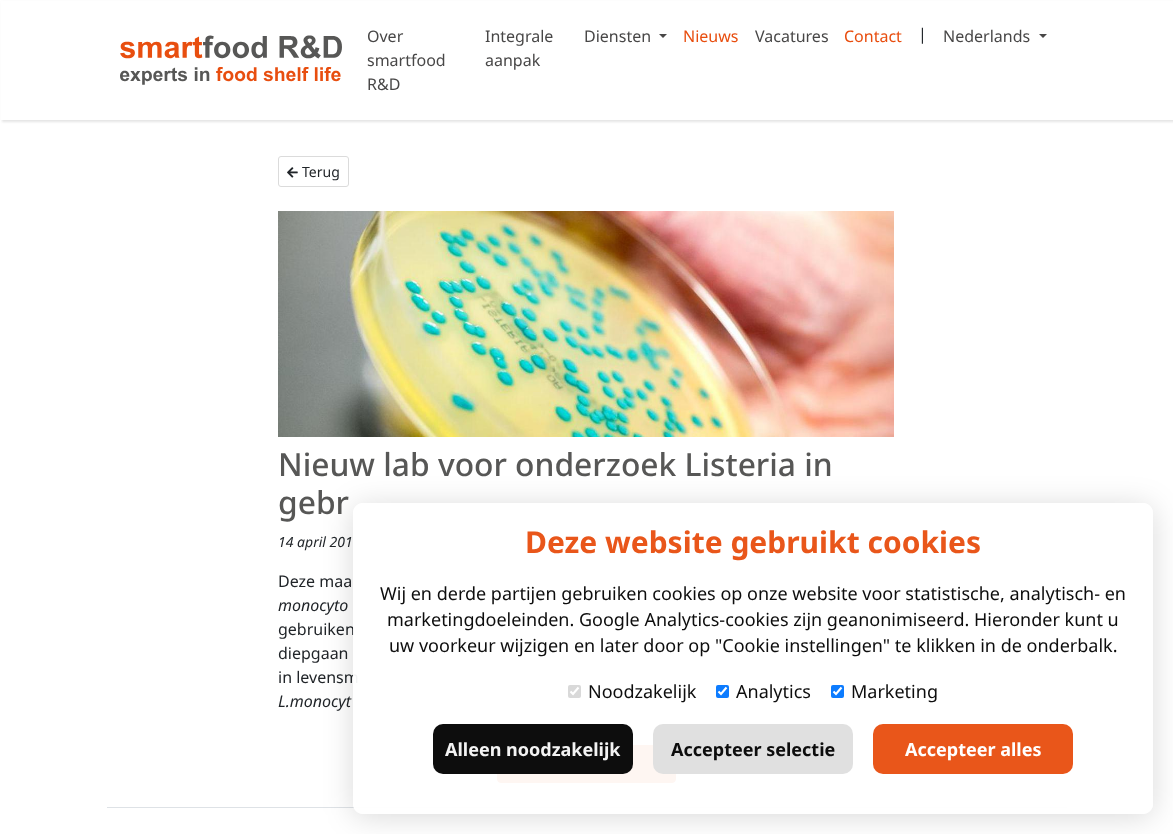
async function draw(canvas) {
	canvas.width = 1173;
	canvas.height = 834;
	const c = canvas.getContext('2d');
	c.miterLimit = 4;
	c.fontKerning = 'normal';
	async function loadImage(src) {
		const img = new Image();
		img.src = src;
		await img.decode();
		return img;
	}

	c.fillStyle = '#fff';
	c.fillRect(0, 0, 1173, 834);
	c.fillStyle = '#0000001a';
	c.filter = 'blur(1px)';
	c.beginPath();
	c.rect(2, 2, 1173, 120);
	c.fill();
	c.filter = 'none';
	c.fillStyle = '#fff';
	c.fillRect(1, 1, 1172, 119);
	c.drawImage(await loadImage('img1.png'), 120, 35, 222, 50);
	c.font = '16px Noto Sans';
	c.fillStyle = '#484747';
	for (const [text, x, y] of [
		['Over', 367, 42],
		['smartfood', 367, 66],
		['R&D', 367, 90],
		['Integrale', 485, 42],
		['aanpak', 485, 66],
		['Diensten', 584, 42],
	]) {
		c.fillText(text, x, y);
	}
	c.beginPath();
	c.moveTo(659, 34);
	c.lineTo(667, 34);
	c.lineTo(663, 38);
	c.closePath();
	c.fill();
	c.fillStyle = '#e84d0e';
	c.fillText('Nieuws', 683, 42);
	c.fillStyle = '#484747';
	c.fillText('Vacatures', 755, 42);
	c.fillStyle = '#e84d0e';
	c.fillText('Contact', 844, 42);
	c.fillStyle = '#212529';
	c.fillText('|', 918, 40);
	c.fillStyle = '#484747';
	c.fillText('Nederlands', 943, 42);
	c.beginPath();
	c.moveTo(1039, 34);
	c.lineTo(1047, 34);
	c.lineTo(1043, 38);
	c.closePath();
	c.fill();
	c.beginPath();
	c.roundRect(278.5, 156.5, 70, 30, 2.5);
	c.strokeStyle = '#dbdbdb';
	c.stroke();
	c.drawImage(await loadImage('img2.png'), 287, 167, 11, 11);
	c.font = '14px Noto Sans';
	c.fillStyle = '#212529';
	c.fillText('Terug', 302, 177);
	c.drawImage(await loadImage('img3.png'), 278, 211, 616, 226);
	c.font = '500 31.75px Noto Sans';
	c.fillStyle = '#575756';
	c.fillText('Nieuw lab voor onderzoek Listeria in', 278, 476);
	c.fillText('gebr', 278, 514);
	c.font = 'italic 14px Noto Sans';
	c.fillStyle = '#212529';
	c.fillText('14 april 201', 278, 547);
	c.font = '16px Noto Sans';
	c.fillText('Deze maa', 278, 587);
	c.font = 'italic 16px Noto Sans';
	c.fillText('monocyto', 278, 611);
	c.font = '16px Noto Sans';
	for (const [text, x, y] of [
		['gebruiken', 278, 635],
		['diepgaan', 278, 659],
		['in levensm', 278, 683],
	]) {
		c.fillText(text, x, y);
	}
	c.font = 'italic 16px Noto Sans';
	c.fillText('L.monocyt', 278, 707);
	c.fillStyle = '#e84d0e';
	c.beginPath();
	c.roundRect(497.5, 745.5, 178, 37, 3.5);
	c.fill();
	c.strokeStyle = '#e84d0e';
	c.stroke();
	c.drawImage(await loadImage('img4.png'), 510, 758, 16, 12);
	c.fillStyle = '#dee2e6';
	c.fillRect(107, 807, 960, 1);
	c.save();
	c.beginPath();
	c.moveTo(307, 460);
	c.lineTo(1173, 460);
	c.lineTo(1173, 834);
	c.lineTo(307, 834);
	c.closePath();
	c.moveTo(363, 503);
	c.lineTo(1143, 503);
	c.bezierCurveTo(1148.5, 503, 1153, 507.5, 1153, 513);
	c.lineTo(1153, 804);
	c.bezierCurveTo(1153, 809.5, 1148.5, 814, 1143, 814);
	c.lineTo(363, 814);
	c.bezierCurveTo(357.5, 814, 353, 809.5, 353, 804);
	c.lineTo(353, 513);
	c.bezierCurveTo(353, 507.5, 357.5, 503, 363, 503);
	c.closePath();
	c.clip('evenodd');
	c.fillStyle = '#00000026';
	c.filter = 'blur(15px)';
	c.beginPath();
	c.roundRect(353, 506, 800, 311, 10);
	c.fill();
	c.filter = 'none';
	c.restore();
	c.fillStyle = '#fffffff2';
	c.beginPath();
	c.roundRect(353, 503, 800, 311, 10);
	c.fill();
	c.font = 'bold 30px Noto Sans';
	c.fillStyle = '#e9561a';
	c.fillText('Deze website gebruikt cookies', 525, 553);
	c.font = '18px Noto Sans';
	c.fillStyle = '#0d0d0d';
	for (const [text, x, y] of [
		['Wij en derde partijen gebruiken cookies op onze website voor statistische, analytisch- en', 380, 600],
		['marketingdoeleinden. Google Analytics-cookies zijn geanonimiseerd. Hieronder kunt u', 387, 626],
		['uw voorkeur wijzigen en later door op "Cookie instellingen" te klikken in de onderbalk.', 389, 652],
	]) {
		c.fillText(text, x, y);
	}
	c.fillStyle = '#76767647';
	c.beginPath();
	c.roundRect(568, 685, 13, 13, 2);
	c.fill();
	c.beginPath();
	c.moveTo(570.5, 691.5);
	c.lineTo(573, 694);
	c.lineTo(578.5, 687.5);
	c.strokeStyle = '#fff';
	c.lineWidth = 2.1;
	c.stroke();
	c.fillStyle = '#0d0d0d';
	c.fillText('Noodzakelijk', 588, 698);
	c.fillStyle = '#0d7cff';
	c.beginPath();
	c.roundRect(716, 685, 13, 13, 2);
	c.fill();
	c.beginPath();
	c.moveTo(718.5, 691.5);
	c.lineTo(721, 694);
	c.lineTo(726.5, 687.5);
	c.stroke();
	c.fillStyle = '#0d0d0d';
	c.fillText('Analytics', 736, 698);
	c.fillStyle = '#0d7cff';
	c.beginPath();
	c.roundRect(831, 685, 13, 13, 2);
	c.fill();
	c.beginPath();
	c.moveTo(833.5, 691.5);
	c.lineTo(836, 694);
	c.lineTo(841.5, 687.5);
	c.stroke();
	c.fillStyle = '#0d0d0d';
	c.fillText('Marketing', 851, 698);
	c.fillStyle = '#000000f2';
	c.beginPath();
	c.roundRect(433, 724, 200, 50, 10);
	c.fill();
	c.font = 'bold 18px Noto Sans';
	c.fillStyle = '#f3f3f3';
	c.fillText('Alleen noodzakelijk', 445, 756);
	c.fillStyle = '#dededef2';
	c.beginPath();
	c.roundRect(653, 724, 200, 50, 10);
	c.fill();
	c.fillStyle = '#0d0d0d';
	c.fillText('Accepteer selectie', 671, 756);
	c.fillStyle = '#e9561a';
	c.beginPath();
	c.roundRect(873, 724, 200, 50, 10);
	c.fill();
	c.fillStyle = '#fff';
	c.fillText('Accepteer alles', 905, 756);
}

draw(document.querySelector('canvas'));
